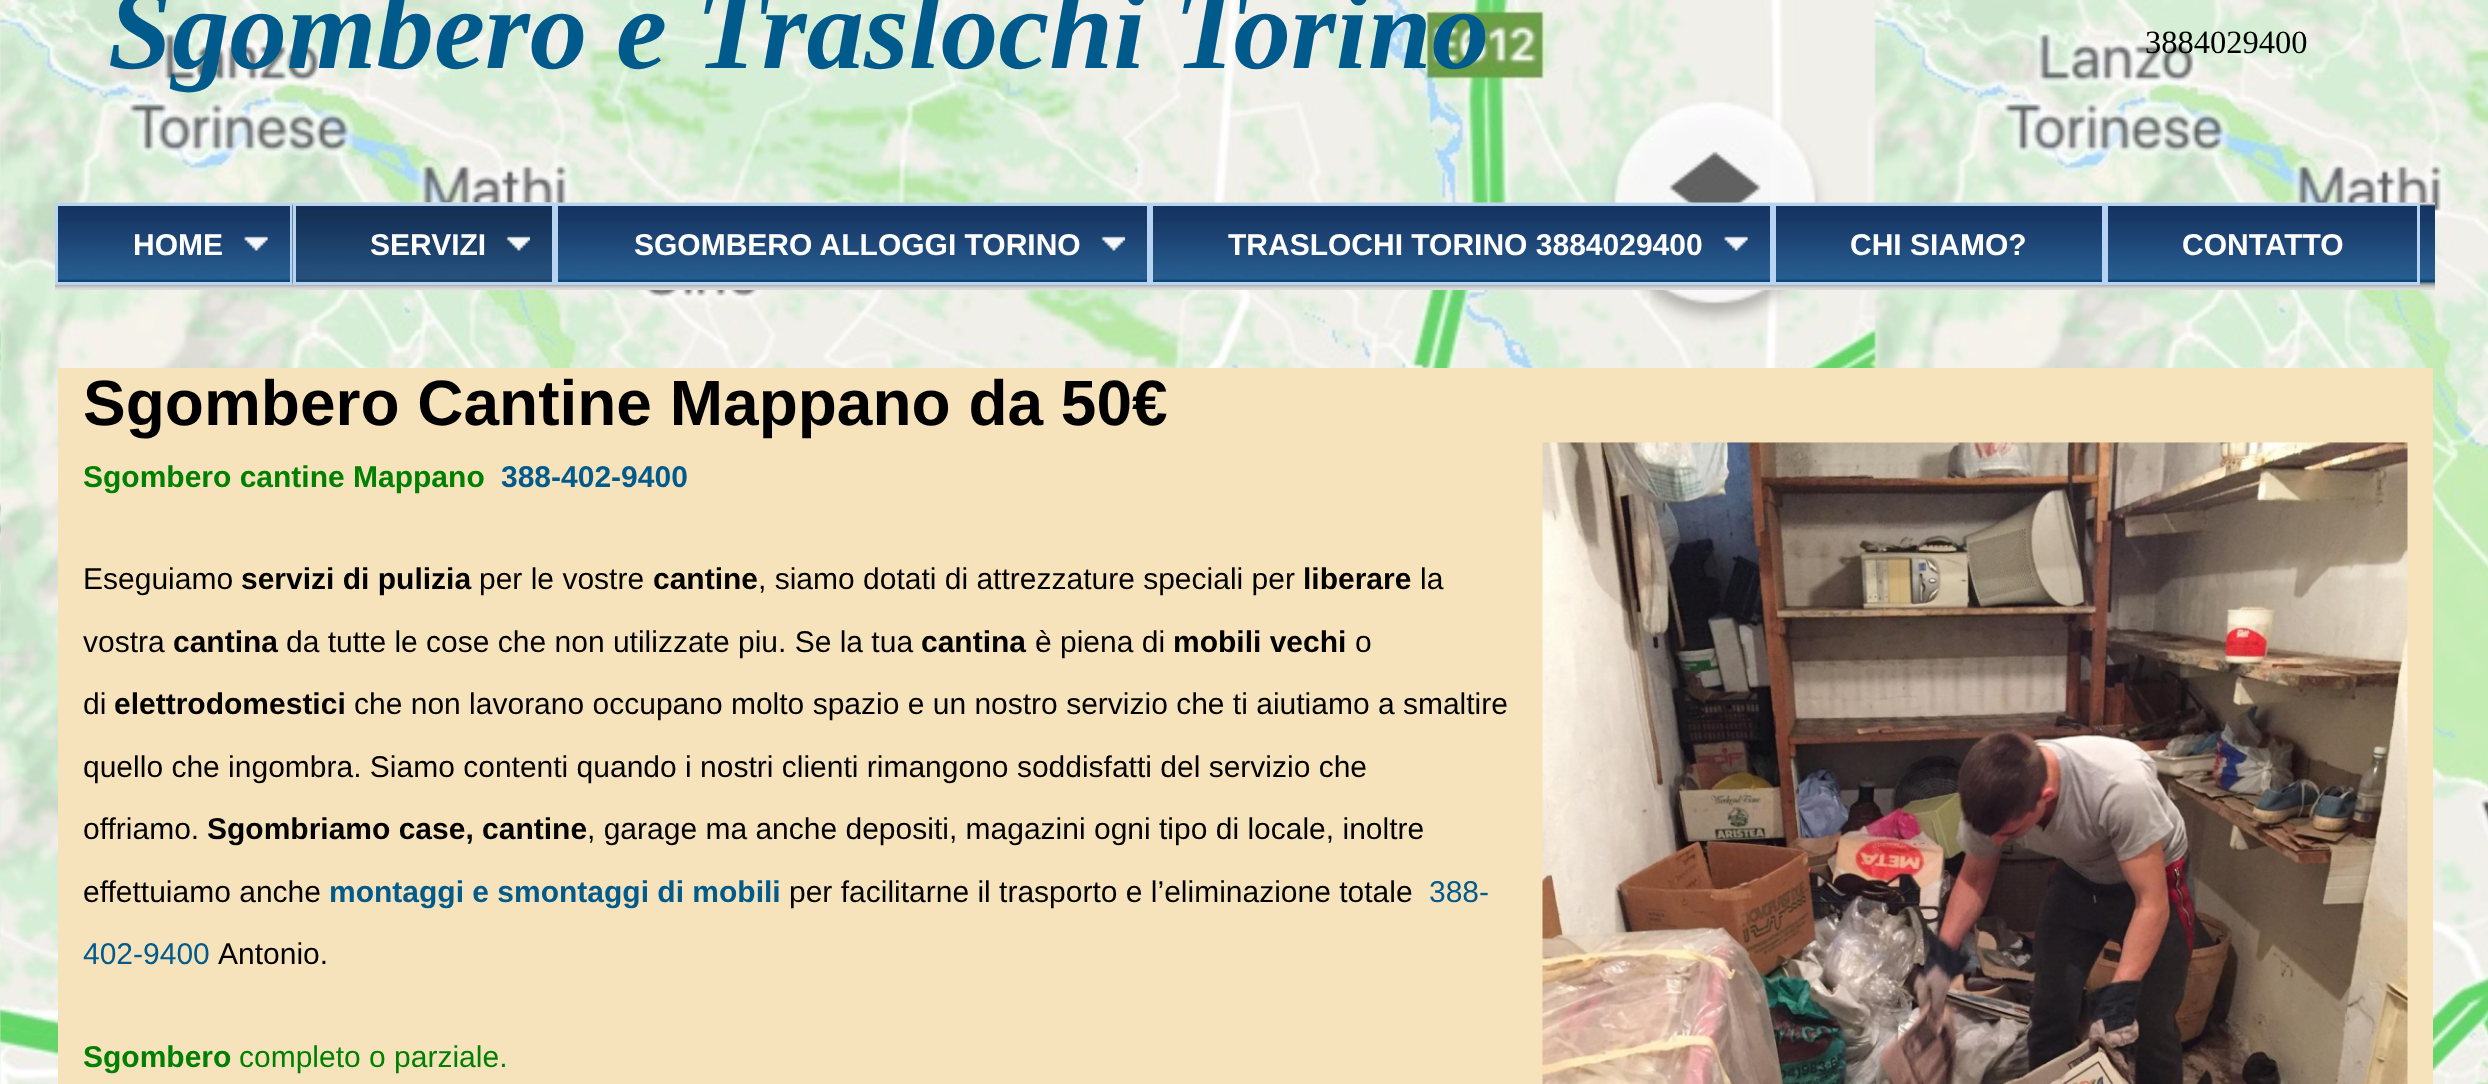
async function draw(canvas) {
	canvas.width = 2488;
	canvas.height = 1084;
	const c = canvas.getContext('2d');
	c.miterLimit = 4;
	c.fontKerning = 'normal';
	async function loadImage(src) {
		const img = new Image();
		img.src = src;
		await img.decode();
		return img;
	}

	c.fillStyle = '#fff';
	c.fillRect(0, 0, 2488, 1084);
	c.drawImage(await loadImage('img1.png'), 0, 0, 2488, 1084);
	c.font = 'italic bold 115px Liberation Serif';
	c.fillStyle = '#005a8c';
	c.fillText('Sgombero e Traslochi Torino', 108, 68);
	c.font = '32.5px Liberation Serif';
	c.fillStyle = '#000';
	c.fillText('3884029400', 2145, 53);
	c.drawImage(await loadImage('img2.png'), 55, 202, 2380, 88);
	c.strokeStyle = '#b7d5f3';
	c.lineWidth = 3;
	c.strokeRect(56.5, 204.5, 235, 79);
	c.font = 'bold 30px Liberation Sans';
	c.fillStyle = '#fff';
	c.fillText('HOME', 133, 255);
	c.drawImage(await loadImage('img3.png'), 244, 236, 24, 15);
	c.drawImage(await loadImage('img4.png'), 244, 236, 24, 15);
	c.drawImage(await loadImage('img5.png'), 292, 202, 263, 83);
	c.strokeRect(294.5, 204.5, 259, 79);
	c.fillText('SERVIZI', 370, 255);
	c.drawImage(await loadImage('img6.png'), 506, 236, 24, 15);
	c.drawImage(await loadImage('img7.png'), 506, 236, 24, 15);
	c.strokeRect(556.5, 204.5, 592, 79);
	c.fillText('SGOMBERO ALLOGGI TORINO', 634, 255);
	c.drawImage(await loadImage('img8.png'), 1101, 236, 24, 15);
	c.drawImage(await loadImage('img9.png'), 1101, 236, 24, 15);
	c.strokeRect(1151.5, 204.5, 620, 79);
	c.fillText('TRASLOCHI TORINO 3884029400', 1228, 255);
	c.drawImage(await loadImage('img10.png'), 1724, 236, 24, 15);
	c.drawImage(await loadImage('img11.png'), 1724, 236, 24, 15);
	c.strokeRect(1774.5, 204.5, 329, 79);
	c.fillText('CHI SIAMO?', 1850, 255);
	c.strokeRect(2106.5, 204.5, 312, 79);
	c.fillText('CONTATTO', 2182, 255);
	c.fillStyle = '#f7e3bb';
	c.fillRect(58, 368, 2375, 716);
	c.font = 'bold 64px Liberation Sans';
	c.fillStyle = '#000';
	c.fillText('Sgombero Cantine Mappano da 50€', 83, 425);
	c.font = 'bold 30px Liberation Sans';
	c.fillStyle = '#008000';
	c.fillText('Sgombero cantine Mappano', 83, 487);
	c.fillStyle = '#005a8c';
	c.fillText('388-402-9400', 501, 487);
	c.drawImage(await loadImage('img12.png'), 1542, 442, 866, 642);
	c.font = '30px Liberation Sans';
	c.fillStyle = '#000';
	c.fillText('Eseguiamo', 83, 589);
	c.font = 'bold 30px Liberation Sans';
	c.fillText('servizi di pulizia', 241, 589);
	c.font = '30px Liberation Sans';
	c.fillText('per le vostre', 479, 589);
	c.font = 'bold 30px Liberation Sans';
	c.fillText('cantine', 653, 589);
	c.font = '30px Liberation Sans';
	c.fillText(', siamo dotati di attrezzature speciali per', 758, 589);
	c.font = 'bold 30px Liberation Sans';
	c.fillText('liberare', 1303, 589);
	c.font = '30px Liberation Sans';
	c.fillText('la', 1420, 589);
	c.fillText('vostra', 83, 652);
	c.font = 'bold 30px Liberation Sans';
	c.fillText('cantina', 173, 652);
	c.font = '30px Liberation Sans';
	c.fillText('da tutte le cose che non utilizzate piu. Se la tua', 286, 652);
	c.font = 'bold 30px Liberation Sans';
	c.fillText('cantina', 921, 652);
	c.font = '30px Liberation Sans';
	c.fillText('è piena di', 1035, 652);
	c.font = 'bold 30px Liberation Sans';
	c.fillText('mobili vechi', 1173, 652);
	c.font = '30px Liberation Sans';
	c.fillText('o', 1355, 652);
	c.fillText('di', 83, 714);
	c.font = 'bold 30px Liberation Sans';
	c.fillText('elettrodomestici', 114, 714);
	c.font = '30px Liberation Sans';
	for (const [text, x, y] of [
		['che non lavorano occupano molto spazio e un nostro servizio che ti aiutiamo a smaltire', 354, 714],
		['quello che ingombra. Siamo contenti quando i nostri clienti rimangono soddisfatti del servizio che', 83, 777],
		['offriamo.', 83, 839],
	]) {
		c.fillText(text, x, y);
	}
	c.font = 'bold 30px Liberation Sans';
	c.fillText('Sgombriamo case, cantine', 207, 839);
	c.font = '30px Liberation Sans';
	c.fillText(', garage ma anche depositi, magazini ogni tipo di locale, inoltre', 587, 839);
	c.fillText('effettuiamo anche', 83, 902);
	c.font = 'bold 30px Liberation Sans';
	c.fillStyle = '#005a8c';
	c.fillText('montaggi e smontaggi di mobili', 329, 902);
	c.font = '30px Liberation Sans';
	c.fillStyle = '#000';
	c.fillText('per facilitarne il trasporto e l’eliminazione totale', 789, 902);
	c.fillStyle = '#005a8c';
	c.fillText('388-', 1429, 902);
	c.fillText('402-9400', 83, 964);
	c.fillStyle = '#000';
	c.fillText('Antonio.', 218, 964);
	c.font = 'bold 30px Liberation Sans';
	c.fillStyle = '#008000';
	c.fillText('Sgombero', 83, 1067);
	c.font = '30px Liberation Sans';
	c.fillText('completo o parziale.', 239, 1067);
}

draw(document.querySelector('canvas'));
